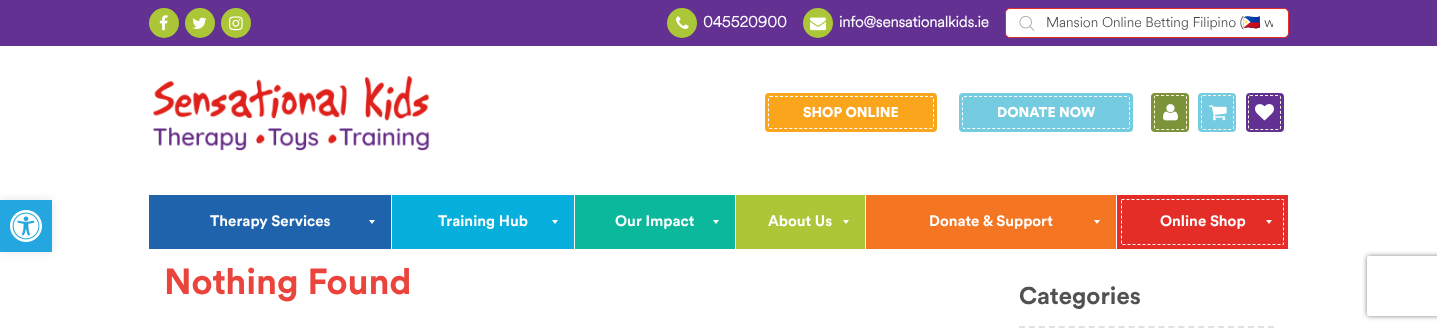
async function draw(canvas) {
	canvas.width = 1437;
	canvas.height = 330;
	const c = canvas.getContext('2d');
	c.miterLimit = 4;
	c.fontKerning = 'normal';
	async function loadImage(src) {
		const img = new Image();
		img.src = src;
		await img.decode();
		return img;
	}

	c.fillStyle = '#fff';
	c.fillRect(0, 0, 1437, 330);
	c.fillStyle = '#0000001a';
	c.filter = 'blur(5px)';
	c.beginPath();
	c.rect(0, 200, 52, 52);
	c.fill();
	c.filter = 'none';
	c.fillStyle = '#24a7e0';
	c.fillRect(0, 200, 52, 52);
	c.drawImage(await loadImage('img1.png'), 10, 210, 32, 32);
	c.fillStyle = '#623191';
	c.fillRect(0, 0, 1437, 46);
	c.fillStyle = '#abc737';
	c.beginPath();
	c.arc(164, 23, 15, 0, 2 * Math.PI);
	c.fill();
	c.drawImage(await loadImage('img2.png'), 159, 15, 9, 16);
	c.beginPath();
	c.arc(200, 23, 15, 0, 2 * Math.PI);
	c.fill();
	c.drawImage(await loadImage('img3.png'), 192, 17, 15, 12);
	c.beginPath();
	c.arc(236, 23, 15, 0, 2 * Math.PI);
	c.fill();
	c.drawImage(await loadImage('img4.png'), 229, 16, 14, 15);
	c.beginPath();
	c.arc(682, 23, 15, 0, 2 * Math.PI);
	c.fill();
	c.drawImage(await loadImage('img5.png'), 676, 16, 13, 13);
	c.font = 'bold 15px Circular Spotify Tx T';
	c.fillStyle = '#fff';
	c.fillText('045520900', 703, 27);
	c.fillStyle = '#abc737';
	c.beginPath();
	c.arc(818, 23, 15, 0, 2 * Math.PI);
	c.fill();
	c.drawImage(await loadImage('img6.png'), 810, 17, 16, 14);
	c.fillStyle = '#fff';
	c.fillText('info@sensationalkids.ie', 839, 27);
	c.beginPath();
	c.roundRect(1005.5, 8.5, 283, 29, 4.5);
	c.fill();
	c.strokeStyle = '#e52d28';
	c.stroke();
	c.drawImage(await loadImage('img7.png'), 1019, 16, 16, 15);
	c.font = '300 14px Circular Spotify Tx T';
	c.fillStyle = '#444';
	c.fillText('Mansion Online Betting Filipino (', 1046, 27);
	c.font = '14px Noto Color Emoji';
	c.fillText('🇵🇭', 1243, 27);
	c.save();
	c.beginPath();
	c.rect(1046, 14, 227, 19);
	c.clip();
	c.font = '300 14px Circular Spotify Tx T';
	c.fillText('w', 1264, 27);
	c.restore();
	c.drawImage(await loadImage('img8.png'), 152, 76, 278, 75);
	c.fillStyle = '#faa51c';
	c.beginPath();
	c.roundRect(765, 93, 172, 39, 4);
	c.fill();
	c.beginPath();
	c.moveTo(770, 96.5);
	c.lineTo(932, 96.5);
	c.bezierCurveTo(933, 96.5, 933.5, 97, 933.5, 98);
	c.lineTo(933.5, 127);
	c.bezierCurveTo(933.5, 128, 933, 128.5, 932, 128.5);
	c.lineTo(770, 128.5);
	c.bezierCurveTo(769, 128.5, 768.5, 128, 768.5, 127);
	c.lineTo(768.5, 98);
	c.bezierCurveTo(768.5, 97, 769, 96.5, 770, 96.5);
	c.closePath();
	c.strokeStyle = '#fff';
	c.setLineDash([3, 2]);
	c.stroke();
	c.font = '900 14px Circular';
	c.fillStyle = '#fff';
	c.fillText('SHOP ONLINE', 803, 117);
	c.fillStyle = '#75cbdf';
	c.beginPath();
	c.roundRect(959, 93, 174, 39, 4);
	c.fill();
	c.beginPath();
	c.moveTo(964, 96.5);
	c.lineTo(1128, 96.5);
	c.bezierCurveTo(1129, 96.5, 1129.5, 97, 1129.5, 98);
	c.lineTo(1129.5, 127);
	c.bezierCurveTo(1129.5, 128, 1129, 128.5, 1128, 128.5);
	c.lineTo(964, 128.5);
	c.bezierCurveTo(963, 128.5, 962.5, 128, 962.5, 127);
	c.lineTo(962.5, 98);
	c.bezierCurveTo(962.5, 97, 963, 96.5, 964, 96.5);
	c.closePath();
	c.stroke();
	c.fillStyle = '#fff';
	c.fillText('DONATE NOW', 997, 117);
	c.fillStyle = '#7d933a';
	c.beginPath();
	c.roundRect(1151, 93, 38, 39, 4);
	c.fill();
	c.beginPath();
	c.moveTo(1156, 95.5);
	c.lineTo(1185, 95.5);
	c.bezierCurveTo(1186, 95.5, 1186.5, 96, 1186.5, 97);
	c.lineTo(1186.5, 128);
	c.bezierCurveTo(1186.5, 129, 1186, 129.5, 1185, 129.5);
	c.lineTo(1156, 129.5);
	c.bezierCurveTo(1155, 129.5, 1154.5, 129, 1154.5, 128);
	c.lineTo(1154.5, 97);
	c.bezierCurveTo(1154.5, 96, 1155, 95.5, 1156, 95.5);
	c.closePath();
	c.strokeStyle = '#fef3e1';
	c.stroke();
	c.drawImage(await loadImage('img9.png'), 1163, 104, 15, 17);
	c.fillStyle = '#75cbdf';
	c.beginPath();
	c.roundRect(1198, 93, 38, 39, 4);
	c.fill();
	c.beginPath();
	c.moveTo(1203, 95.5);
	c.lineTo(1232, 95.5);
	c.bezierCurveTo(1233, 95.5, 1233.5, 96, 1233.5, 97);
	c.lineTo(1233.5, 128);
	c.bezierCurveTo(1233.5, 129, 1233, 129.5, 1232, 129.5);
	c.lineTo(1203, 129.5);
	c.bezierCurveTo(1202, 129.5, 1201.5, 129, 1201.5, 128);
	c.lineTo(1201.5, 97);
	c.bezierCurveTo(1201.5, 96, 1202, 95.5, 1203, 95.5);
	c.closePath();
	c.stroke();
	c.drawImage(await loadImage('img10.png'), 1209, 105, 18, 16);
	c.fillStyle = '#613292';
	c.beginPath();
	c.roundRect(1246, 93, 38, 39, 4);
	c.fill();
	c.beginPath();
	c.moveTo(1250, 95.5);
	c.lineTo(1279, 95.5);
	c.bezierCurveTo(1280, 95.5, 1280.5, 96, 1280.5, 97);
	c.lineTo(1280.5, 128);
	c.bezierCurveTo(1280.5, 129, 1280, 129.5, 1279, 129.5);
	c.lineTo(1250, 129.5);
	c.bezierCurveTo(1249, 129.5, 1248.5, 129, 1248.5, 128);
	c.lineTo(1248.5, 97);
	c.bezierCurveTo(1248.5, 96, 1249, 95.5, 1250, 95.5);
	c.closePath();
	c.stroke();
	c.drawImage(await loadImage('img11.png'), 1255, 104, 19, 17);
	c.fillStyle = '#1f63ad';
	c.fillRect(149, 195, 242, 54);
	c.font = 'bold 15px Circular';
	c.fillStyle = '#fff';
	c.fillText('Therapy Services', 210, 226);
	c.beginPath();
	c.moveTo(369, 220);
	c.lineTo(375, 220);
	c.lineTo(372, 224);
	c.closePath();
	c.fill();
	c.fillStyle = '#07afdc';
	c.fillRect(392, 195, 182, 54);
	c.fillStyle = '#fff';
	c.fillText('Training Hub', 438, 226);
	c.beginPath();
	c.moveTo(552, 220);
	c.lineTo(558, 220);
	c.lineTo(555, 224);
	c.closePath();
	c.fill();
	c.fillStyle = '#0bb89b';
	c.fillRect(575, 195, 160, 54);
	c.fillStyle = '#fff';
	c.fillText('Our Impact', 615, 226);
	c.beginPath();
	c.moveTo(713, 220);
	c.lineTo(719, 220);
	c.lineTo(716, 224);
	c.closePath();
	c.fill();
	c.fillStyle = '#abc737';
	c.fillRect(736, 195, 129, 54);
	c.fillStyle = '#fff';
	c.fillText('About Us', 768, 226);
	c.beginPath();
	c.moveTo(843, 220);
	c.lineTo(849, 220);
	c.lineTo(846, 224);
	c.closePath();
	c.fill();
	c.fillStyle = '#f47522';
	c.fillRect(866, 195, 250, 54);
	c.fillStyle = '#fff';
	c.fillText('Donate & Support', 929, 226);
	c.beginPath();
	c.moveTo(1094, 220);
	c.lineTo(1100, 220);
	c.lineTo(1097, 224);
	c.closePath();
	c.fill();
	c.fillStyle = '#e52d28';
	c.fillRect(1117, 195, 171, 54);
	c.beginPath();
	c.moveTo(1121.5, 199.5);
	c.lineTo(1283.5, 199.5);
	c.lineTo(1283.5, 244.5);
	c.lineTo(1121.5, 244.5);
	c.closePath();
	c.strokeStyle = '#fff';
	c.stroke();
	c.fillStyle = '#fff';
	c.fillText('Online Shop', 1160, 226);
	c.beginPath();
	c.moveTo(1266, 220);
	c.lineTo(1272, 220);
	c.lineTo(1269, 224);
	c.closePath();
	c.fill();
	c.font = 'bold 36px Circular';
	c.fillStyle = '#ea443c';
	c.fillText('Nothing Found', 164, 294);
	c.beginPath();
	c.moveTo(1019, 327);
	c.lineTo(1274, 327);
	c.strokeStyle = '#e1e1e1';
	c.lineWidth = 2;
	c.setLineDash([6, 3.96]);
	c.stroke();
	c.font = 'bold 24px Circular';
	c.fillStyle = '#515151';
	c.fillText('Categories', 1019, 304);
	c.save();
	c.beginPath();
	c.moveTo(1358, 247);
	c.lineTo(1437, 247);
	c.lineTo(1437, 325);
	c.lineTo(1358, 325);
	c.closePath();
	c.moveTo(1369, 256);
	c.lineTo(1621, 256);
	c.bezierCurveTo(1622, 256, 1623, 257, 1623, 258);
	c.lineTo(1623, 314);
	c.bezierCurveTo(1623, 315, 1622, 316, 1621, 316);
	c.lineTo(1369, 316);
	c.bezierCurveTo(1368, 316, 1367, 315, 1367, 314);
	c.lineTo(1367, 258);
	c.bezierCurveTo(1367, 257, 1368, 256, 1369, 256);
	c.closePath();
	c.clip('evenodd');
	c.fillStyle = '#808080';
	c.filter = 'blur(2.5px)';
	c.beginPath();
	c.roundRect(1367, 256, 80, 60, 2);
	c.fill();
	c.filter = 'none';
	c.restore();
}

draw(document.querySelector('canvas'));
